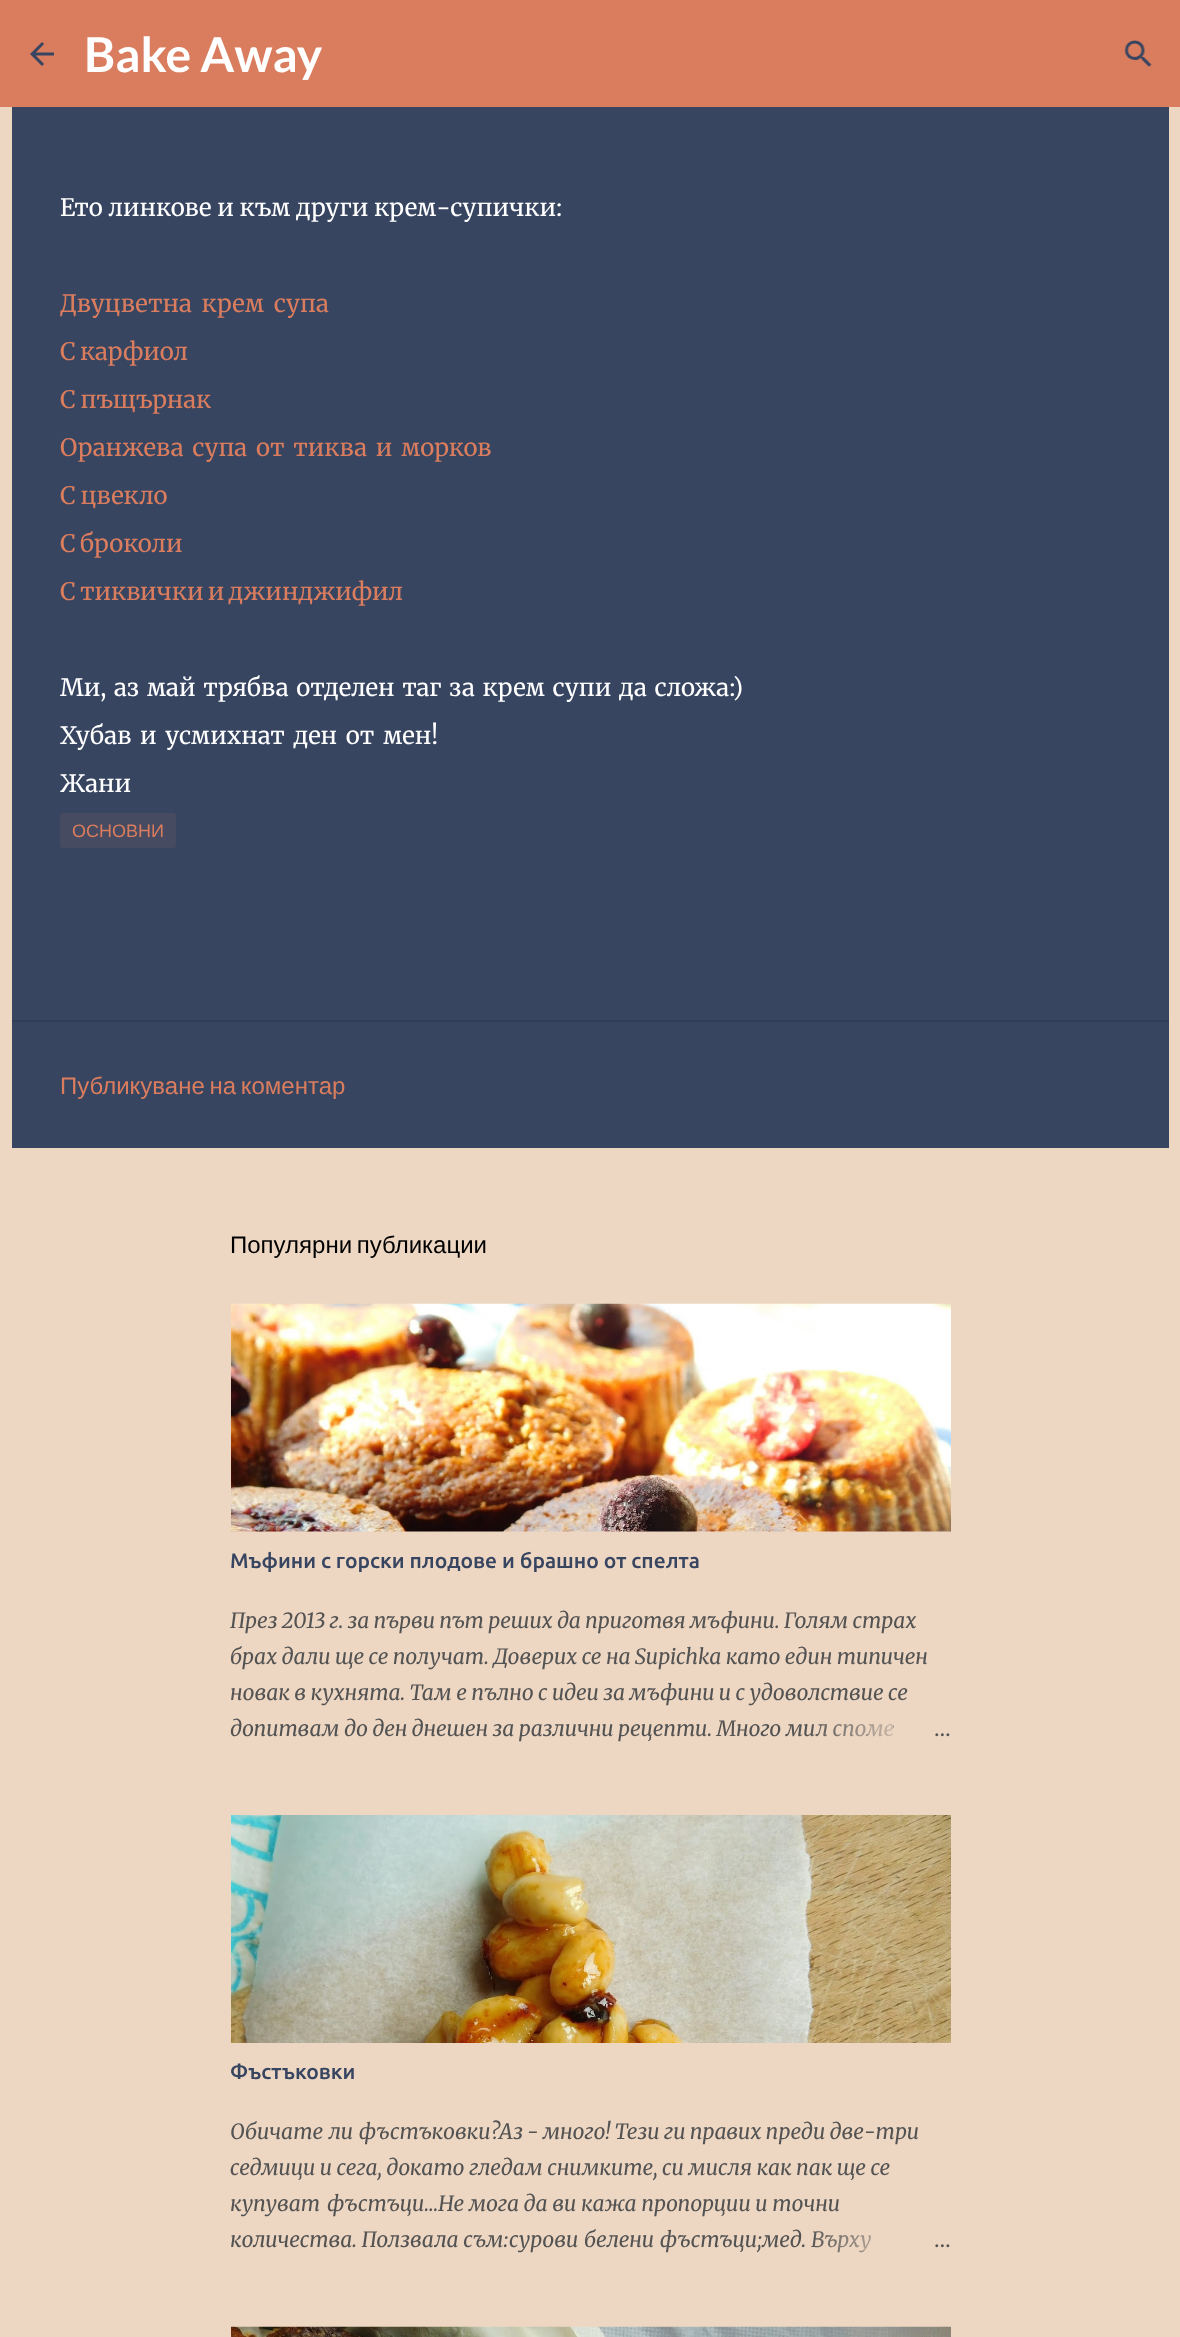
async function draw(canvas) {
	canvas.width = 1180;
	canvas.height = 2337;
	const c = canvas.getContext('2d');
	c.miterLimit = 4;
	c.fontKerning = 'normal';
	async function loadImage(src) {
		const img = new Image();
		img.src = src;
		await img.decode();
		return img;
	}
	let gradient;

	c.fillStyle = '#eed7c2';
	c.fillRect(0, 0, 1180, 2337);
	c.fillStyle = '#da7d5e';
	c.fillRect(0, 0, 1180, 107);
	c.drawImage(await loadImage('img1.png'), 30, 42, 24, 24);
	c.font = 'bold 48px Lato';
	c.fillStyle = '#fff';
	c.fillText('Bake Away', 84, 72);
	c.drawImage(await loadImage('img2.png'), 1124, 40, 28, 27);
	c.fillStyle = '#374561';
	c.fillRect(12, 107, 1157, 913);
	c.font = '300 24px Merriweather';
	c.fillStyle = '#fff';
	c.fillText('Ето линкове и към други крем-супички:', 60, 216);
	c.wordSpacing = '4px';
	c.fillStyle = '#da7d5e';
	c.fillText('Двуцветна крем супа', 60, 312);
	c.wordSpacing = '-1.5px';
	c.fillText('С карфиол', 60, 360);
	c.wordSpacing = '-1px';
	c.fillText('С пъщърнак', 60, 408);
	c.wordSpacing = '3px';
	c.fillText('Оранжева супа от тиква и морков', 60, 456);
	c.wordSpacing = '-1px';
	c.fillText('С цвекло', 60, 504);
	c.wordSpacing = '-1.5px';
	c.fillText('С броколи', 60, 552);
	c.fillText('С тиквички и джинджифил', 60, 600);
	c.wordSpacing = '2px';
	c.fillStyle = '#fff';
	c.fillText('Ми, аз май трябва отделен таг за крем супи да сложа:)', 60, 696);
	c.wordSpacing = '3px';
	c.fillText('Хубав и усмихнат ден от мен!', 60, 744);
	c.wordSpacing = '0px';
	c.fillText('Жани', 60, 792);
	c.fillStyle = '#474b61';
	c.beginPath();
	c.roundRect(60, 813, 116, 35, 3);
	c.fill();
	c.font = '18px Liberation Sans';
	c.fillStyle = '#da7d5e';
	c.fillText('ОСНОВНИ', 72, 837);
	c.fillStyle = '#374561';
	c.fillRect(12, 1022, 1157, 126);
	c.fillStyle = '#303d55';
	c.fillRect(12, 1020, 1157, 2);
	c.wordSpacing = '-2px';
	c.font = '24px Liberation Sans';
	c.fillStyle = '#da7d5e';
	c.fillText('Публикуване на коментар', 60, 1094);
	c.fillStyle = '#000';
	c.fillText('Популярни публикации', 230, 1253);
	c.drawImage(await loadImage('img3.png'), 231, 1303, 720, 229);
	c.wordSpacing = '0px';
	c.font = '500 21px Ubuntu';
	c.fillStyle = '#374561';
	c.fillText('Мъфини с горски плодове и брашно от спелта', 230, 1568);
	c.wordSpacing = '-0.5px';
	c.font = 'italic 21px Merriweather';
	c.fillStyle = '#535353';
	c.fillText('През 2013 г. за първи път реших да приготвя мъфини. Голям страх', 230, 1628);
	c.wordSpacing = '-0.25px';
	c.fillText('брах дали ще се получат. Доверих се на Supichka като един типичен', 230, 1664);
	c.wordSpacing = '-0.3px';
	c.fillText('новак в кухнята. Там е пълно с идеи за мъфини и с удоволствие се', 230, 1700);
	c.wordSpacing = '-0.25px';
	c.fillText('допитвам до ден днешен за различни рецепти. Много мил споме', 230, 1736);
	gradient = c.createLinearGradient(951, 1728, 807, 1728);
	gradient.addColorStop(0, '#eed7c2');
	gradient.addColorStop(0.2, '#eed7c2');
	gradient.addColorStop(1, '#eed7c200');
	c.fillStyle = gradient;
	c.fillRect(810, 1724, 83, 13);
	c.wordSpacing = '0px';
	c.font = '300 21px Merriweather';
	c.fillStyle = '#535353';
	c.fillText('…', 934, 1736);
	c.drawImage(await loadImage('img4.png'), 231, 1815, 720, 228);
	c.font = '500 21px Ubuntu';
	c.fillStyle = '#374561';
	c.fillText('Фъстъковки', 230, 2079);
	c.wordSpacing = '1px';
	c.font = 'italic 21px Merriweather';
	c.fillStyle = '#535353';
	c.fillText('Обичате ли фъстъковки?', 230, 2139);
	c.wordSpacing = '-0.5px';
	c.fillText('Аз - много! Тези ги правих преди две-три', 499, 2139);
	c.wordSpacing = '-0.25px';
	c.fillText('седмици и сега, докато гледам снимките, си мисля как пак ще се', 230, 2175);
	c.wordSpacing = '2px';
	c.fillText('купуват фъстъци…', 230, 2211);
	c.wordSpacing = '0px';
	c.fillText('Не мога да ви кажа пропорции и точни', 438, 2211);
	c.fillText('количества. Ползвала съм:', 230, 2247);
	c.wordSpacing = '1px';
	c.fillText('сурови белени фъстъци;', 509, 2247);
	c.wordSpacing = '0px';
	c.fillText('мед. Върху', 762, 2247);
	gradient = c.createLinearGradient(951, 2240, 807, 2240);
	gradient.addColorStop(0, '#eed7c2');
	gradient.addColorStop(0.2, '#eed7c2');
	gradient.addColorStop(1, '#eed7c200');
	c.fillStyle = gradient;
	c.fillRect(811, 2231, 60, 22);
	c.font = '300 21px Merriweather';
	c.fillStyle = '#535353';
	c.fillText('…', 934, 2247);
	c.drawImage(await loadImage('img5.png'), 231, 2326, 720, 11);
}

draw(document.querySelector('canvas'));
